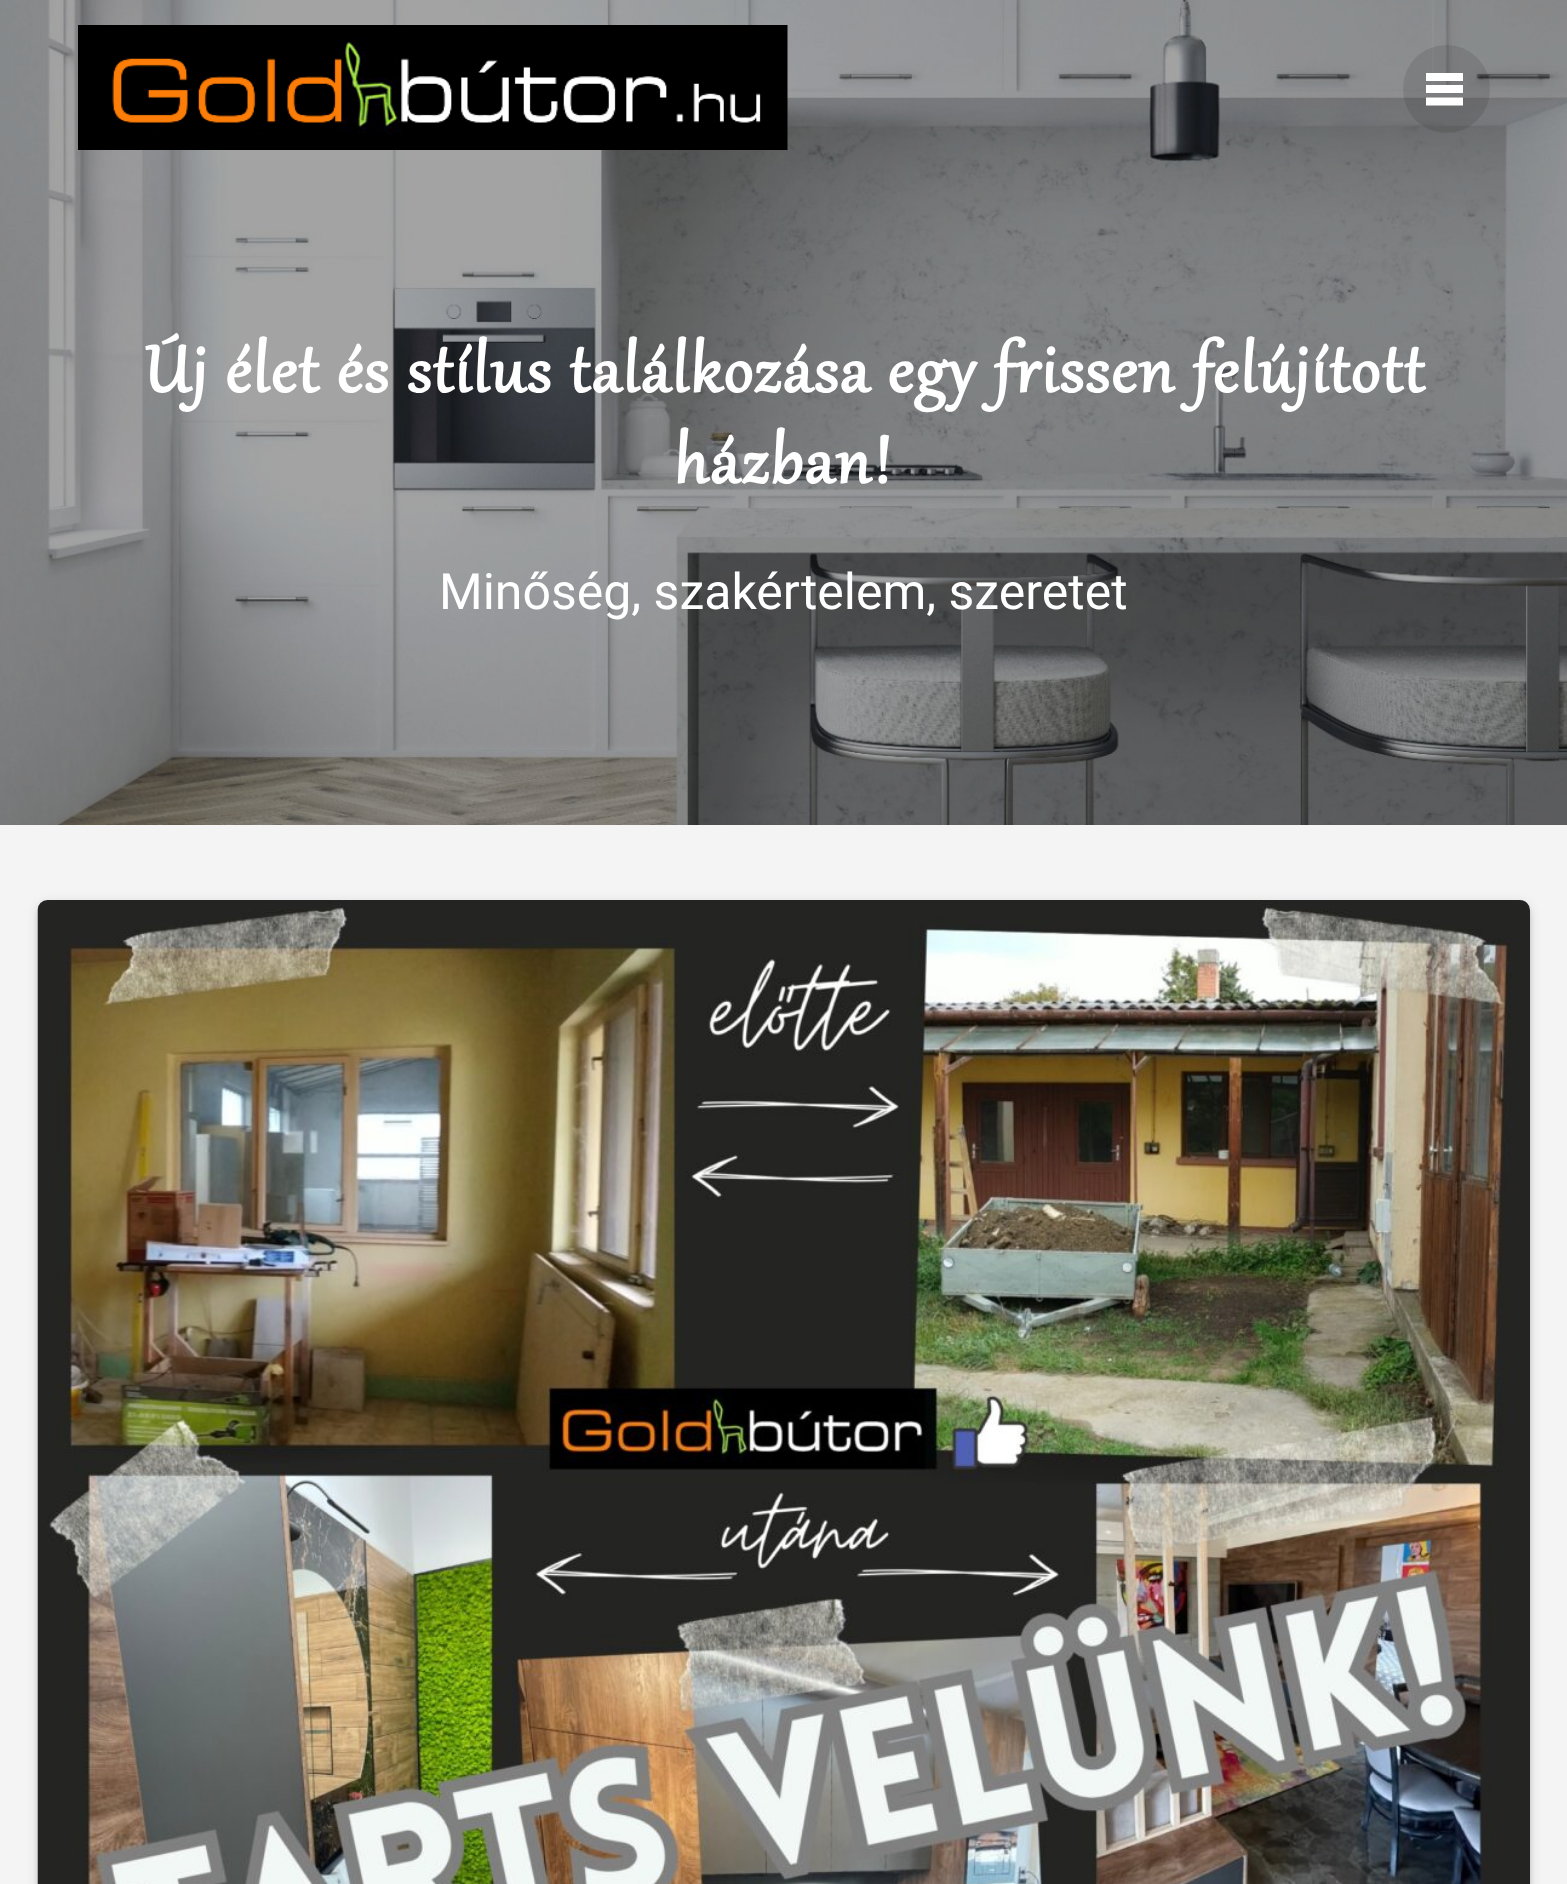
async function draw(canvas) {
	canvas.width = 1567;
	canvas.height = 1884;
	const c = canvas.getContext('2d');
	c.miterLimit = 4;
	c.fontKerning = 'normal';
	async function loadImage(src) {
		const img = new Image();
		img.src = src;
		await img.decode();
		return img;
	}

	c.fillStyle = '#fff';
	c.fillRect(0, 0, 1567, 1884);
	c.drawImage(await loadImage('img2.png'), 0, 0, 1567, 825);
	c.drawImage(await loadImage('img1.png'), 78, 25, 710, 125);
	c.fillStyle = '#0000001a';
	c.beginPath();
	c.roundRect(1403, 45, 87, 88, 43.5);
	c.fill();
	c.fillStyle = '#fff';
	c.beginPath();
	c.moveTo(1426, 73);
	c.lineTo(1463, 73);
	c.lineTo(1463, 81);
	c.lineTo(1426, 81);
	c.closePath();
	c.moveTo(1426, 85);
	c.lineTo(1463, 85);
	c.lineTo(1463, 93);
	c.lineTo(1426, 93);
	c.closePath();
	c.moveTo(1426, 97.5);
	c.lineTo(1463, 97.5);
	c.lineTo(1463, 105.5);
	c.lineTo(1426, 105.5);
	c.closePath();
	c.fill();
	c.letterSpacing = '2.5px';
	c.wordSpacing = '0.25px';
	c.font = 'bold 80.5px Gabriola';
	c.fillText('Új élet és stílus találkozása egy frissen felújított', 144, 392);
	c.wordSpacing = '0px';
	c.fillText('házban!', 674, 483);
	c.letterSpacing = '0px';
	c.font = '50px Roboto';
	c.fillText('Minőség, szakértelem, szeretet', 439, 609);
	c.fillStyle = '#f4f4f4';
	c.fillRect(0, 825, 1567, 1059);
	c.fillStyle = '#0000001f';
	c.filter = 'blur(6px)';
	c.beginPath();
	c.roundRect(38, 903, 1492, 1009, 10);
	c.fill();
	c.filter = 'none';
	c.fillStyle = '#00000024';
	c.filter = 'blur(2.5px)';
	c.beginPath();
	c.roundRect(38, 905, 1492, 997, 10);
	c.fill();
	c.filter = 'none';
	c.fillStyle = '#fff';
	c.beginPath();
	c.roundRect(38, 900, 1492, 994, 10);
	c.fill();
	c.drawImage(await loadImage('img3.png'), 37, 900, 1493, 984);
}

draw(document.querySelector('canvas'));
